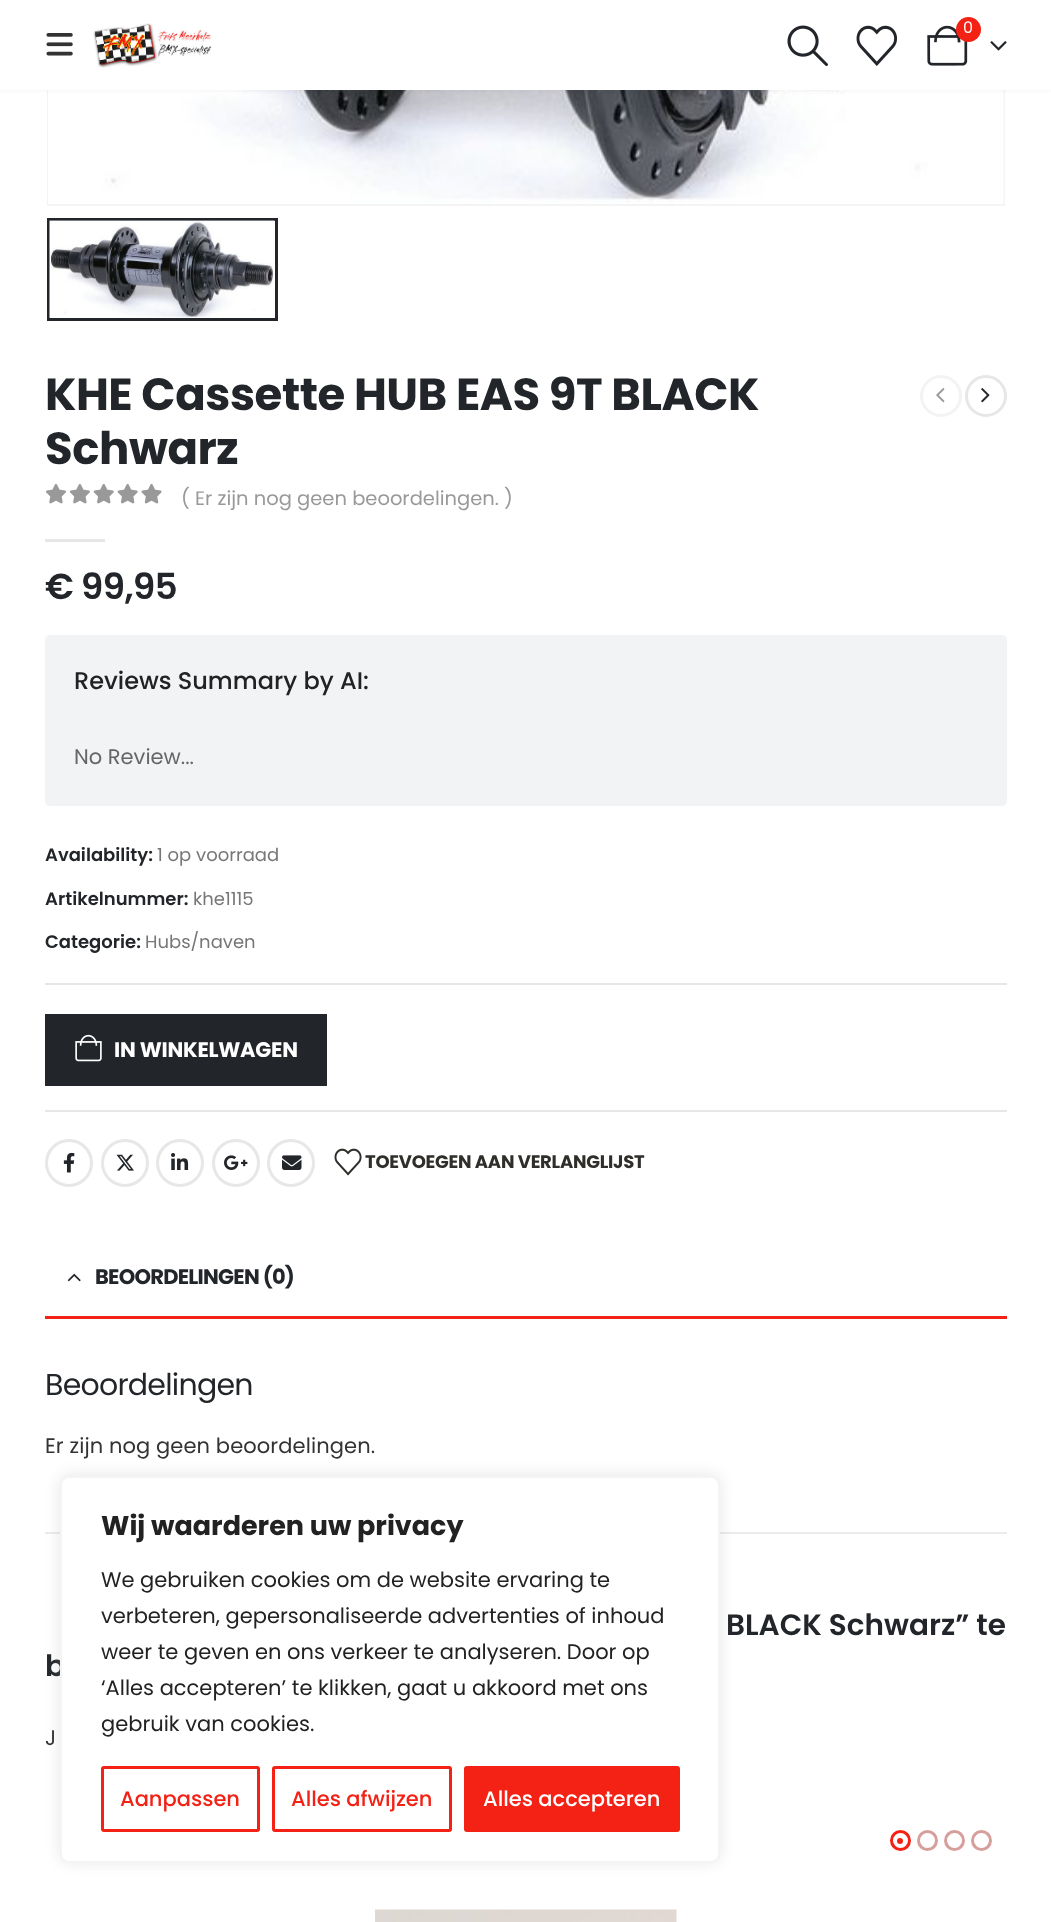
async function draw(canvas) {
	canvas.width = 1051;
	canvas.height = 1922;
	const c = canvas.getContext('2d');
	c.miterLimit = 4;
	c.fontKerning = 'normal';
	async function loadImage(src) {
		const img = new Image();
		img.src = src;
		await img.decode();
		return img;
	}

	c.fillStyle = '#fff';
	c.fillRect(0, 0, 1051, 1922);
	c.strokeStyle = '#f4f4f4';
	c.lineWidth = 2;
	c.strokeRect(48, -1, 956, 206);
	c.drawImage(await loadImage('img7.png'), 48, 90, 956, 114);
	c.fillStyle = '#0000000f';
	c.filter = 'blur(2px)';
	c.beginPath();
	c.rect(0, 0, 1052, 90);
	c.fill();
	c.filter = 'none';
	c.fillStyle = '#fff';
	c.fillRect(0, 0, 1051, 90);
	c.drawImage(await loadImage('img1.png'), 46, 33, 27, 23);
	c.drawImage(await loadImage('img2.png'), 93, 23, 119, 45);
	c.drawImage(await loadImage('img3.png'), 787, 25, 41, 41);
	c.drawImage(await loadImage('img4.png'), 856, 25, 41, 41);
	c.drawImage(await loadImage('img5.png'), 927, 25, 41, 41);
	c.fillStyle = '#f42115';
	c.beginPath();
	c.arc(968.5, 29.5, 12.5, 0, 2 * Math.PI);
	c.fill();
	c.font = '16px Poppins';
	c.fillStyle = '#fff';
	c.fillText('0', 963, 33);
	c.drawImage(await loadImage('img6.png'), 990, 41, 17, 10);
	c.strokeStyle = '#222529';
	c.lineWidth = 3;
	c.strokeRect(48.5, 219.5, 228, 100);
	c.drawImage(await loadImage('img8.png'), 49, 220, 226, 98);
	c.letterSpacing = '-0.45px';
	c.font = 'bold 45px Poppins';
	c.fillStyle = '#222529';
	c.fillText('KHE Cassette HUB EAS 9T BLACK', 45, 410);
	c.fillText('Schwarz', 45, 464);
	c.beginPath();
	c.arc(941, 396, 19.5, 0, 2 * Math.PI);
	c.strokeStyle = '#f3f3f3';
	c.stroke();
	c.drawImage(await loadImage('img9.png'), 936, 388, 9, 15);
	c.beginPath();
	c.arc(986, 396, 19.5, 0, 2 * Math.PI);
	c.strokeStyle = '#e7e7e7';
	c.stroke();
	c.drawImage(await loadImage('img10.png'), 981, 388, 9, 15);
	c.drawImage(await loadImage('img11.png'), 46, 484, 116, 20);
	c.letterSpacing = '0px';
	c.font = '19.5px Poppins';
	c.fillStyle = '#999';
	c.fillText('( Er zijn nog geen beoordelingen. )', 181, 505);
	c.fillStyle = '#e7e7e7';
	c.fillRect(45, 539, 60, 3);
	c.letterSpacing = '-0.75px';
	c.font = '600 36px Poppins';
	c.fillStyle = '#222529';
	c.fillText('€ 99,95', 45, 599);
	c.fillStyle = '#f2f3f5';
	c.beginPath();
	c.roundRect(45, 635, 962, 171, 5);
	c.fill();
	c.letterSpacing = '0px';
	c.font = '500 24px Poppins';
	c.fillStyle = '#222';
	c.fillText('Reviews Summary by AI:', 74, 689);
	c.font = '21px Poppins';
	c.fillStyle = '#666';
	c.fillText('No Review...', 74, 764);
	c.font = '600 18px Poppins';
	c.fillStyle = '#222529';
	c.fillText('Availability:', 45, 861);
	c.font = '18px Poppins';
	c.fillStyle = '#777';
	c.fillText('1 op voorraad', 157, 861);
	c.font = '600 18px Poppins';
	c.fillStyle = '#222529';
	c.fillText('Artikelnummer:', 45, 905);
	c.font = '18px Poppins';
	c.fillStyle = '#777';
	c.fillText('khe1115', 193, 905);
	c.font = '600 18px Poppins';
	c.fillStyle = '#222529';
	c.fillText('Categorie:', 45, 948);
	c.font = '18px Poppins';
	c.fillStyle = '#777';
	c.fillText('Hubs/naven', 145, 948);
	for (const [x, y, w, h, color] of [
		[45, 983, 962, 2, '#e7e7e7'],
		[45, 1110, 962, 2, '#e7e7e7'],
		[45, 1014, 282, 72, '#222529'],
	]) {
		c.fillStyle = color;
		c.fillRect(x, y, w, h);
	}
	c.drawImage(await loadImage('img12.png'), 75, 1034, 27, 28);
	c.letterSpacing = '-0.25px';
	c.font = 'bold 21px Poppins';
	c.fillStyle = '#fff';
	c.fillText('IN WINKELWAGEN', 114, 1057);
	c.beginPath();
	c.arc(69, 1163, 22.5, 0, 2 * Math.PI);
	c.stroke();
	c.drawImage(await loadImage('img13.png'), 63, 1152, 12, 21);
	c.beginPath();
	c.arc(125, 1163, 22.5, 0, 2 * Math.PI);
	c.stroke();
	c.drawImage(await loadImage('img14.png'), 116, 1154, 18, 17);
	c.beginPath();
	c.arc(180, 1163, 22.5, 0, 2 * Math.PI);
	c.stroke();
	c.drawImage(await loadImage('img15.png'), 171, 1153, 18, 17);
	c.beginPath();
	c.arc(236, 1163, 22.5, 0, 2 * Math.PI);
	c.stroke();
	c.drawImage(await loadImage('img16.png'), 224, 1155, 24, 15);
	c.beginPath();
	c.arc(291, 1163, 22.5, 0, 2 * Math.PI);
	c.stroke();
	c.drawImage(await loadImage('img17.png'), 282, 1155, 20, 15);
	c.drawImage(await loadImage('img18.png'), 334, 1148, 28, 28);
	c.font = 'bold 18px Poppins';
	c.fillStyle = '#302e2a';
	c.fillText('TOEVOEGEN AAN VERLANGLIJST', 365, 1168);
	c.fillStyle = '#f42115';
	c.fillRect(45, 1316, 962, 3);
	c.drawImage(await loadImage('img19.png'), 67, 1273, 14, 9);
	c.letterSpacing = '-0.75px';
	c.font = 'bold 21px Poppins';
	c.fillStyle = '#222529';
	c.fillText('BEOORDELINGEN (0)', 95, 1284);
	c.font = '30px Poppins';
	c.fillText('Beoordelingen', 45, 1395);
	c.letterSpacing = '0.1px';
	c.font = '21px Poppins';
	c.fillStyle = '#333';
	c.fillText('Er zijn nog geen beoordelingen.', 45, 1453);
	c.fillStyle = '#ebebeb';
	c.fillRect(45, 1532, 962, 2);
	c.letterSpacing = '0px';
	c.font = '600 29.5px Poppins';
	c.fillStyle = '#222529';
	c.fillText('BLACK Schwarz” te', 726, 1635);
	c.fillText('b', 45, 1676);
	c.letterSpacing = '0.1px';
	c.font = '21px Poppins';
	c.fillStyle = '#333';
	c.fillText('J', 45, 1745);
	c.beginPath();
	c.arc(900.5, 1840.5, 9, 0, 2 * Math.PI);
	c.strokeStyle = '#f42115';
	c.stroke();
	c.fillStyle = '#f42115';
	c.beginPath();
	c.arc(900, 1841, 3, 0, 2 * Math.PI);
	c.fill();
	c.beginPath();
	c.arc(927.5, 1840.5, 9, 0, 2 * Math.PI);
	c.strokeStyle = '#d79f9c';
	c.stroke();
	c.beginPath();
	c.arc(954.5, 1840.5, 9, 0, 2 * Math.PI);
	c.stroke();
	c.beginPath();
	c.arc(981.5, 1840.5, 9, 0, 2 * Math.PI);
	c.stroke();
	c.drawImage(await loadImage('img20.png'), 375, 1909, 302, 13);
	c.fillStyle = '#acabab4d';
	c.filter = 'blur(7.5px)';
	c.beginPath();
	c.roundRect(60, 1475, 660, 387, 9);
	c.fill();
	c.filter = 'none';
	c.fillStyle = '#fff';
	c.beginPath();
	c.roundRect(61, 1477, 658, 385, 8);
	c.fill();
	c.strokeStyle = '#f4f4f4';
	c.lineWidth = 2;
	c.stroke();
	c.letterSpacing = '0px';
	c.font = 'bold 27px Poppins';
	c.fillStyle = '#222';
	c.fillText('Wij waarderen uw privacy', 101, 1535);
	c.font = '21px Poppins';
	for (const [text, x, y] of [
		['We gebruiken cookies om de website ervaring te', 101, 1587],
		['verbeteren, gepersonaliseerde advertenties of inhoud', 101, 1623],
		['weer te geven en ons verkeer te analyseren. Door op', 101, 1659],
		['‘Alles accepteren’ te klikken, gaat u akkoord met ons', 101, 1695],
		['gebruik van cookies.', 101, 1731],
	]) {
		c.fillText(text, x, y);
	}
	c.beginPath();
	c.roundRect(102.5, 1767.5, 156, 63, 1.5);
	c.strokeStyle = '#f42115';
	c.lineWidth = 3;
	c.stroke();
	c.font = '500 21px Poppins';
	c.fillStyle = '#f42115';
	c.fillText('Aanpassen', 120, 1806);
	c.beginPath();
	c.roundRect(273.5, 1767.5, 177, 63, 1.5);
	c.stroke();
	c.fillText('Alles afwijzen', 291, 1806);
	c.beginPath();
	c.roundRect(465.5, 1767.5, 213, 63, 1.5);
	c.fill();
	c.stroke();
	c.fillStyle = '#fff';
	c.fillText('Alles accepteren', 483, 1806);
}

draw(document.querySelector('canvas'));
